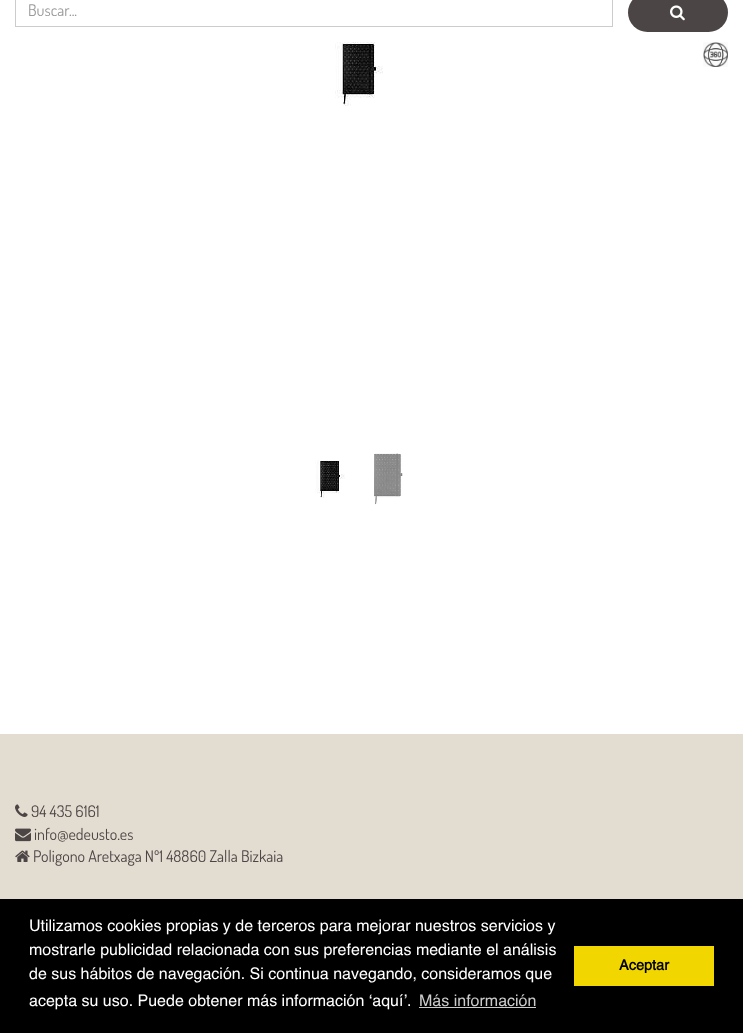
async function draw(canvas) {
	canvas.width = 743;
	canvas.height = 1033;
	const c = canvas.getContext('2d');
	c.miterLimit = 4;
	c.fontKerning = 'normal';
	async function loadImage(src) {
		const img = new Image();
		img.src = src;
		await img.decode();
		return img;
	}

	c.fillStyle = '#fff';
	c.fillRect(0, 0, 743, 1033);
	c.strokeStyle = '#ccc';
	c.strokeRect(15.5, -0.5, 597, 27);
	c.font = '16px Dosis';
	c.fillStyle = '#999';
	c.fillText('Buscar...', 28, 16);
	c.fillStyle = '#4c4545';
	c.beginPath();
	c.roundRect(628, -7, 100, 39, 19.5);
	c.fill();
	c.drawImage(await loadImage('img1.png'), 670, 5, 15, 16);
	c.drawImage(await loadImage('img2.png'), 335, 42, 48, 64);
	c.drawImage(await loadImage('img3.png'), 315, 460, 30, 38);
	c.drawImage(await loadImage('img4.png'), 374, 453, 29, 52);
	c.drawImage(await loadImage('img5.png'), 703, 42, 25, 25);
	c.fillStyle = '#e3dcd1';
	c.fillRect(0, 734, 743, 165);
	c.drawImage(await loadImage('img6.png'), 15, 804, 13, 13);
	c.fillStyle = '#4c4545';
	c.fillText('94 435 6161', 31, 817);
	c.drawImage(await loadImage('img7.png'), 15, 828, 16, 14);
	c.fillText('info@edeusto.es', 34, 840);
	c.drawImage(await loadImage('img8.png'), 15, 850, 15, 12);
	c.fillText('Poligono Aretxaga Nº1 48860 Zalla Bizkaia', 33, 862);
	c.fillStyle = '#000';
	c.fillRect(0, 899, 743, 134);
	c.font = '16px Helvetica';
	c.fillStyle = '#fff';
	for (const [text, x, y] of [
		['Utilizamos cookies propias y de terceros para mejorar nuestros servicios y', 29, 931],
		['mostrarle publicidad relacionada con sus preferencias mediante el análisis', 29, 955],
		['de sus hábitos de navegación. Si continua navegando, consideramos que', 29, 979],
		['acepta su uso. Puede obtener más información ‘aquí’.', 29, 1006],
	]) {
		c.fillText(text, x, y);
	}
	c.fillStyle = '#ccc';
	c.fillText('Más información', 419, 1006);
	c.fillRect(419, 1007, 117, 1);
	c.fillStyle = '#f1d600';
	c.fillRect(574, 946, 140, 40);
	c.font = 'bold 14.5px Helvetica';
	c.fillStyle = '#000';
	c.fillText('Aceptar', 619, 970);
}

draw(document.querySelector('canvas'));
